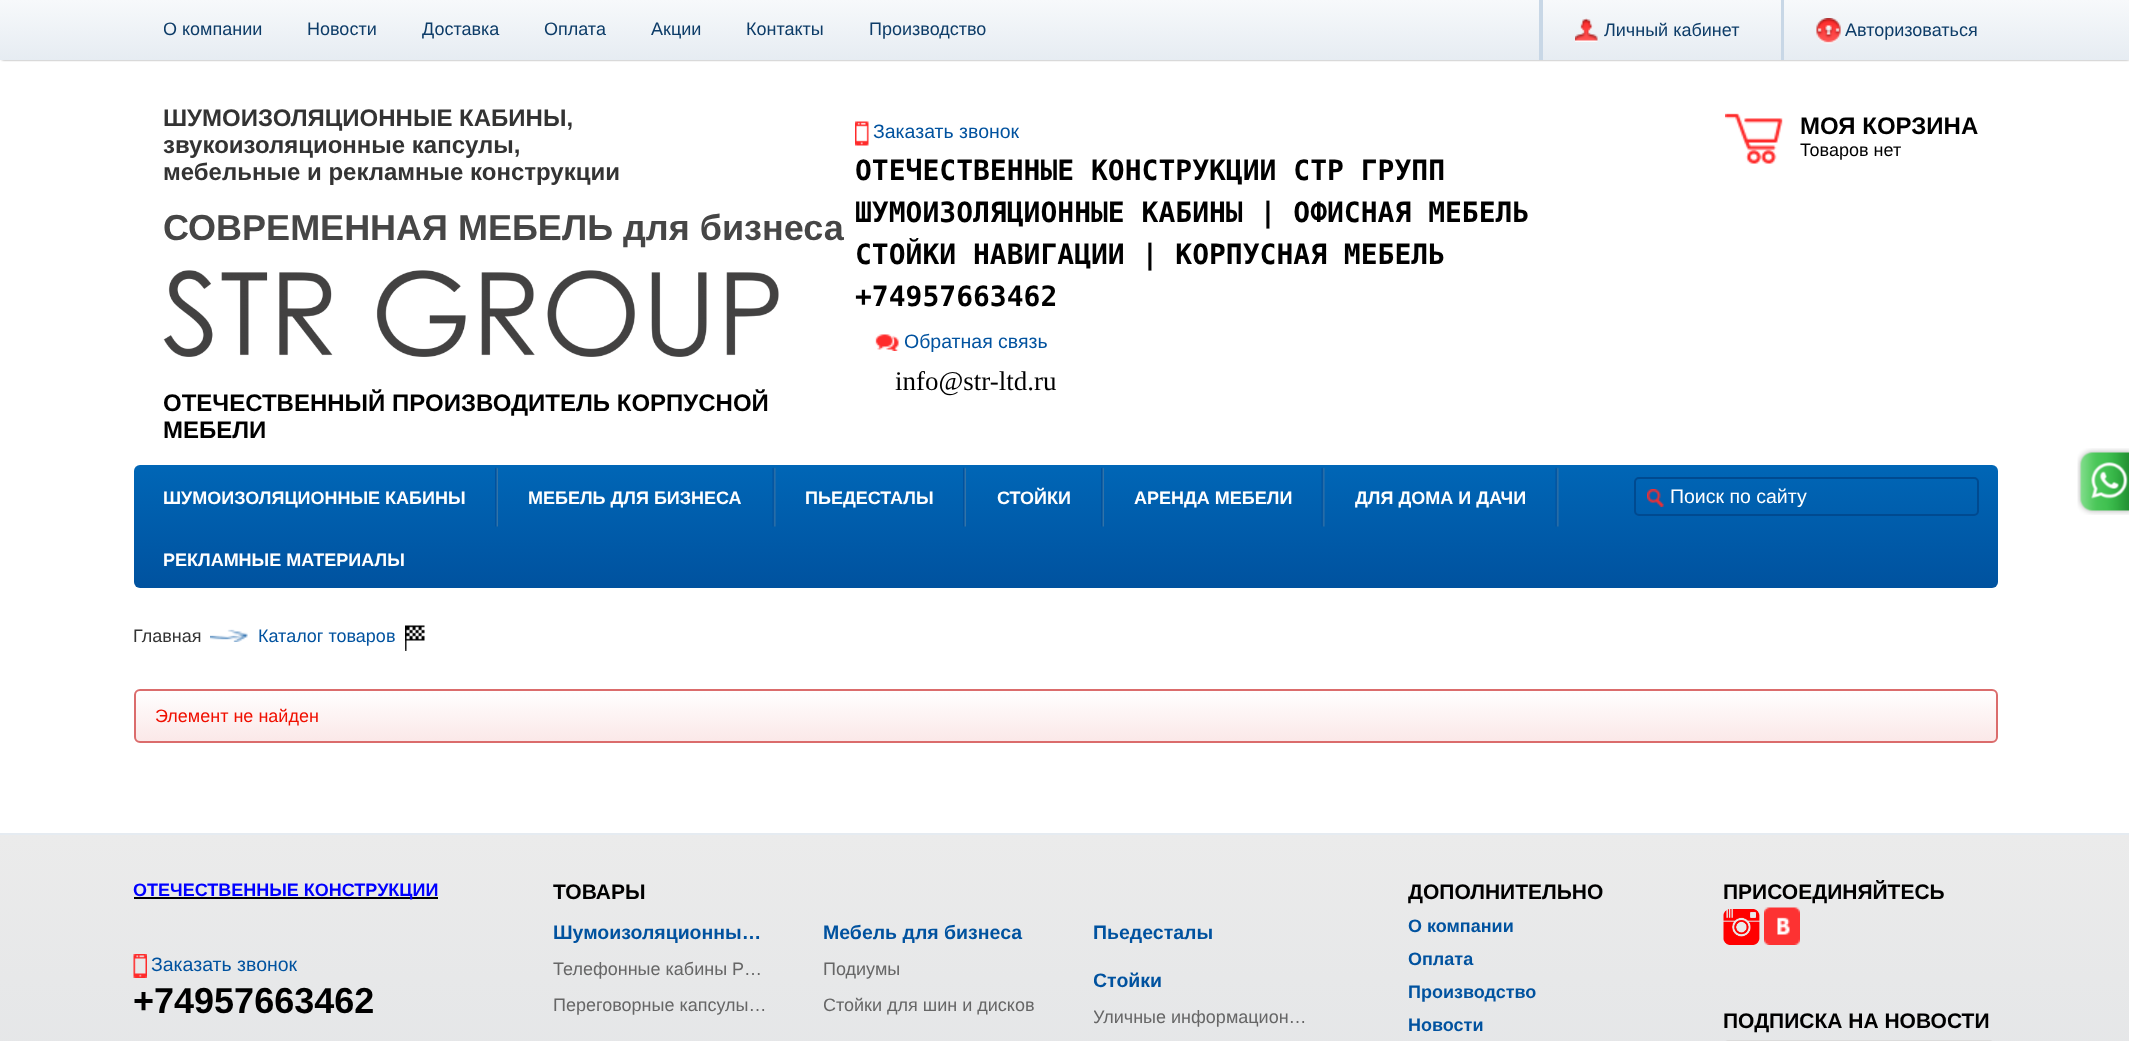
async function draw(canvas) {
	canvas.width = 2129;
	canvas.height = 1041;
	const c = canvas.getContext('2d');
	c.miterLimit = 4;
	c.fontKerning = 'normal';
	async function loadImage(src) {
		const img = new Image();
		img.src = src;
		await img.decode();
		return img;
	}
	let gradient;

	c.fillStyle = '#fff';
	c.fillRect(0, 0, 2129, 1041);
	c.fillStyle = '#000';
	c.filter = 'blur(1.5px)';
	c.beginPath();
	c.rect(2, 2, 2127, 57);
	c.fill();
	c.filter = 'none';
	gradient = c.createLinearGradient(1065, 0, 1065, 60);
	gradient.addColorStop(0, '#f7f9fb');
	gradient.addColorStop(1, '#e6ecf2');
	c.fillStyle = gradient;
	c.fillRect(0, 0, 2129, 60);
	c.save();
	c.beginPath();
	c.rect(164, 0, 868, 60);
	c.clip();
	c.font = '18px Liberation Sans';
	c.fillStyle = '#0d3c68';
	c.fillText('О компании', 163, 35);
	c.restore();
	c.font = '18px Liberation Sans';
	c.fillStyle = '#0d3c68';
	for (const [text, x, y] of [
		['Новости', 307, 35],
		['Доставка', 422, 35],
		['Оплата', 544, 35],
		['Акции', 651, 35],
		['Контакты', 746, 35],
		['Производство', 869, 35],
	]) {
		c.fillText(text, x, y);
	}
	c.fillStyle = '#c8d7e6';
	c.fillRect(1539, 0, 4, 60);
	c.drawImage(await loadImage('img1.png'), 1575, 18, 23, 24);
	c.fillStyle = '#0d3c68';
	c.fillText('Личный кабинет', 1604, 36);
	c.fillStyle = '#c8d7e6';
	c.fillRect(1781, 0, 3, 60);
	c.drawImage(await loadImage('img2.png'), 1816, 18, 25, 26);
	c.fillStyle = '#0d3c68';
	c.fillText('Авторизоваться', 1845, 36);
	c.font = 'bold 24px Liberation Sans';
	c.fillStyle = '#333';
	for (const [text, x, y] of [
		['ШУМОИЗОЛЯЦИОННЫЕ КАБИНЫ,', 163, 126],
		['звукоизоляционные капсулы,', 163, 153],
		['мебельные и рекламные конструкции', 163, 180],
	]) {
		c.fillText(text, x, y);
	}
	c.font = 'bold 36px Liberation Sans';
	c.fillStyle = '#464646';
	c.fillText('СОВРЕМЕННАЯ МЕБЕЛЬ для бизнеса', 163, 240);
	c.drawImage(await loadImage('img3.png'), 163, 270, 616, 87);
	c.font = 'bold 24px Liberation Sans';
	c.fillStyle = '#000';
	c.fillText('ОТЕЧЕСТВЕННЫЙ ПРОИЗВОДИТЕЛЬ КОРПУСНОЙ', 163, 411);
	c.fillText('МЕБЕЛИ', 163, 438);
	c.drawImage(await loadImage('img4.png'), 855, 121, 14, 25);
	c.font = '19.5px Liberation Sans';
	c.fillStyle = '#00529f';
	c.fillText('Заказать звонок', 873, 138);
	c.font = 'bold 28px DejaVu Sans Mono';
	c.fillStyle = '#000';
	for (const [text, x, y] of [
		['ОТЕЧЕСТВЕННЫЕ КОНСТРУКЦИИ СТР ГРУПП', 855, 180],
		['ШУМОИЗОЛЯЦИОННЫЕ КАБИНЫ | ОФИСНАЯ МЕБЕЛЬ', 855, 222],
		['СТОЙКИ НАВИГАЦИИ | КОРПУСНАЯ МЕБЕЛЬ', 855, 264],
		['+74957663462', 855, 306],
	]) {
		c.fillText(text, x, y);
	}
	c.drawImage(await loadImage('img5.png'), 875, 334, 24, 17);
	c.font = '19.5px Liberation Sans';
	c.fillStyle = '#00529f';
	c.fillText('Обратная связь', 904, 348);
	c.font = '27px Liberation Serif';
	c.fillStyle = '#000';
	c.fillText('info@str-ltd.ru', 895, 390);
	c.drawImage(await loadImage('img6.png'), 1725, 113, 58, 51);
	c.font = 'bold 24px Liberation Sans';
	c.fillText('МОЯ КОРЗИНА', 1800, 134);
	c.font = '18px Liberation Sans';
	c.fillText('Товаров нет', 1800, 156);
	gradient = c.createLinearGradient(1066, 465, 1066, 588);
	gradient.addColorStop(0, '#0066b6');
	gradient.addColorStop(1, '#00529f');
	c.fillStyle = gradient;
	c.beginPath();
	c.roundRect(134, 465, 1864, 123, 6);
	c.fill();
	c.font = 'bold 18px Liberation Sans';
	c.fillStyle = '#fff';
	c.fillText('ШУМОИЗОЛЯЦИОННЫЕ КАБИНЫ', 163, 504);
	c.drawImage(await loadImage('img7.png'), 495, 467, 3, 60);
	c.fillText('МЕБЕЛЬ ДЛЯ БИЗНЕСА', 528, 504);
	c.drawImage(await loadImage('img8.png'), 772, 467, 4, 60);
	c.fillText('ПЬЕДЕСТАЛЫ', 805, 504);
	c.drawImage(await loadImage('img9.png'), 963, 467, 3, 60);
	c.fillText('СТОЙКИ', 997, 504);
	c.drawImage(await loadImage('img7.png'), 1101, 467, 3, 60);
	c.fillText('АРЕНДА МЕБЕЛИ', 1134, 504);
	c.drawImage(await loadImage('img8.png'), 1321, 467, 4, 60);
	c.fillText('ДЛЯ ДОМА И ДАЧИ', 1355, 504);
	c.drawImage(await loadImage('img8.png'), 1555, 467, 4, 60);
	c.fillText('РЕКЛАМНЫЕ МАТЕРИАЛЫ', 163, 566);
	c.beginPath();
	c.roundRect(1635, 478, 343, 37, 4);
	c.strokeStyle = '#004a90';
	c.lineWidth = 2;
	c.stroke();
	c.drawImage(await loadImage('img10.png'), 1647, 489, 17, 18);
	c.font = '19.5px Liberation Sans';
	c.fillText('Поиск по сайту', 1670, 503);
	c.font = '18px Liberation Sans';
	c.fillStyle = '#333';
	c.fillText('Главная', 133, 642);
	c.drawImage(await loadImage('img11.png'), 210, 629, 38, 13);
	c.fillStyle = '#00529f';
	c.fillText('Каталог товаров', 258, 642);
	c.drawImage(await loadImage('img12.png'), 405, 625, 20, 26);
	c.save();
	c.beginPath();
	c.roundRect(134, 689, 1864, 54, 6);
	c.clip();
	gradient = c.createLinearGradient(1066, 690, 1066, 741);
	gradient.addColorStop(0, '#fff');
	gradient.addColorStop(1, '#fbe8e8');
	c.fillStyle = gradient;
	c.fillRect(134, 690, 1864, 51);
	c.restore();
	c.beginPath();
	c.roundRect(135, 690, 1862, 52, 5);
	c.strokeStyle = '#db6c6c';
	c.stroke();
	c.fillStyle = '#f00f00';
	c.fillText('Элемент не найден', 155, 722);
	c.drawImage(await loadImage('img13.png'), 2077, 448, 52, 67);
	gradient = c.createLinearGradient(1065, 834, 1065, 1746);
	gradient.addColorStop(0, '#ebebeb');
	gradient.addColorStop(1, '#d2d8de');
	c.fillStyle = gradient;
	c.fillRect(0, 835, 2129, 206);
	c.fillStyle = '#e5ebf1';
	c.fillRect(0, 833, 2129, 2);
	c.fillStyle = '#000';
	c.fillRect(134, 897, 304, 2);
	c.font = 'bold 18px Liberation Sans';
	c.fillStyle = '#00f';
	c.fillText('ОТЕЧЕСТВЕННЫЕ КОНСТРУКЦИИ', 133, 896);
	c.drawImage(await loadImage('img14.png'), 133, 954, 14, 24);
	c.font = '19.5px Liberation Sans';
	c.fillStyle = '#00529f';
	c.fillText('Заказать звонок', 151, 971);
	c.font = 'bold 36px Liberation Sans';
	c.fillStyle = '#000';
	c.fillText('+74957663462', 133, 1013);
	c.font = 'bold 21px Liberation Sans';
	c.fillText('ТОВАРЫ', 553, 899);
	c.font = 'bold 19.5px Liberation Sans';
	c.fillStyle = '#00529f';
	c.fillText('Шумоизоляционны…', 553, 939);
	c.font = '18px Liberation Sans';
	c.fillStyle = '#666';
	c.fillText('Телефонные кабины P…', 553, 975);
	c.fillText('Переговорные капсулы…', 553, 1011);
	c.font = 'bold 19.5px Liberation Sans';
	c.fillStyle = '#00529f';
	c.fillText('Мебель для бизнеса', 823, 939);
	c.font = '18px Liberation Sans';
	c.fillStyle = '#666';
	c.fillText('Подиумы', 823, 975);
	c.save();
	c.beginPath();
	c.rect(824, 995, 211, 21);
	c.clip();
	c.fillText('Стойки для шин и дисков', 823, 1011);
	c.restore();
	c.font = 'bold 19.5px Liberation Sans';
	c.fillStyle = '#00529f';
	c.fillText('Пьедесталы', 1093, 939);
	c.save();
	c.beginPath();
	c.rect(1094, 969, 69, 23);
	c.clip();
	c.fillText('Стойки', 1093, 987);
	c.restore();
	c.save();
	c.beginPath();
	c.rect(1094, 1007, 217, 21);
	c.clip();
	c.font = '18px Liberation Sans';
	c.fillStyle = '#666';
	c.fillText('Уличные информацион…', 1093, 1023);
	c.restore();
	c.font = 'bold 21px Liberation Sans';
	c.fillStyle = '#000';
	c.fillText('ДОПОЛНИТЕЛЬНО', 1408, 899);
	c.font = 'bold 18px Liberation Sans';
	c.fillStyle = '#00529f';
	for (const [text, x, y] of [
		['О компании', 1408, 932],
		['Оплата', 1408, 965],
		['Производство', 1408, 998],
		['Новости', 1408, 1031],
	]) {
		c.fillText(text, x, y);
	}
	c.font = 'bold 21px Liberation Sans';
	c.fillStyle = '#000';
	c.fillText('ПРИСОЕДИНЯЙТЕСЬ', 1723, 899);
	c.drawImage(await loadImage('img15.png'), 1723, 909, 37, 36);
	c.drawImage(await loadImage('img16.png'), 1764, 907, 36, 38);
	c.fillText('ПОДПИСКА НА НОВОСТИ', 1723, 1028);
	c.beginPath();
	c.roundRect(1725, 1041, 268, 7, 5);
	c.strokeStyle = '#dbdbdb';
	c.stroke();
}

draw(document.querySelector('canvas'));
